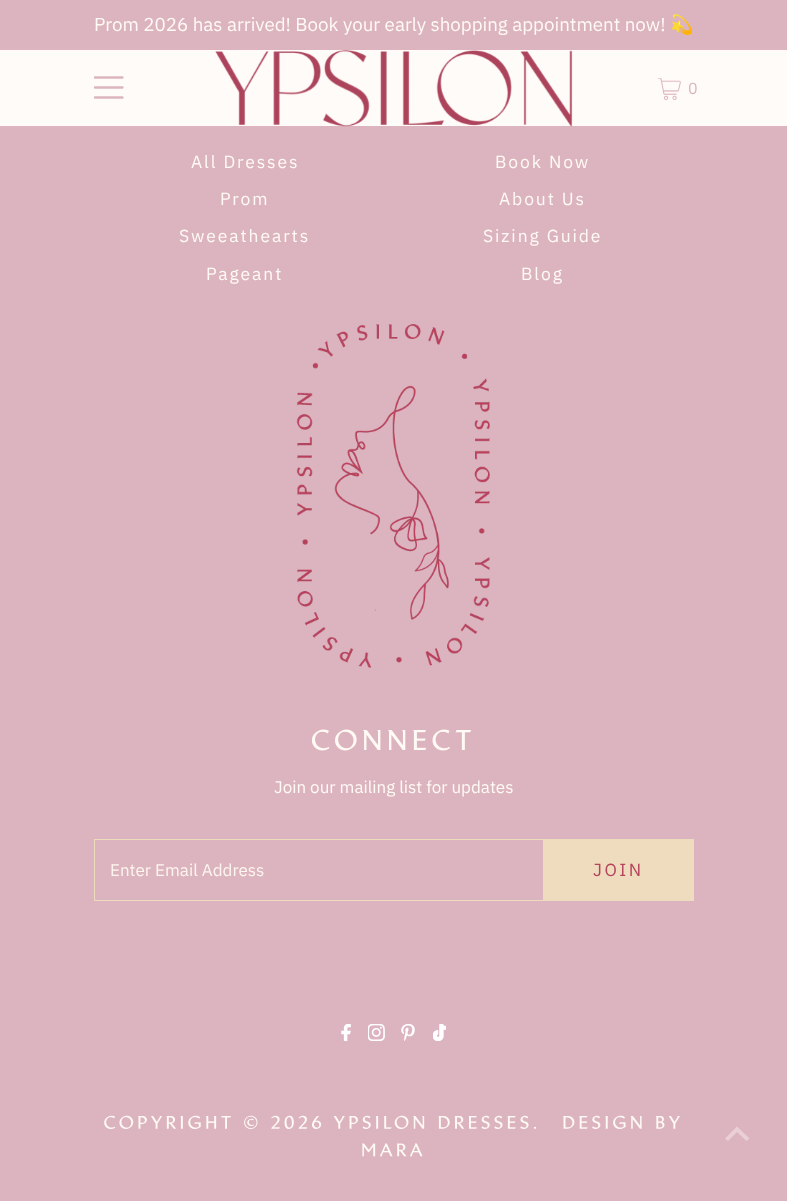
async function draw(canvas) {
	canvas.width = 787;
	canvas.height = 1201;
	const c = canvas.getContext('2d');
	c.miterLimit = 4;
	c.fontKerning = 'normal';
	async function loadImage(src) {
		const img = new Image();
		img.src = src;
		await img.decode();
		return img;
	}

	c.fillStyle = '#dcb4bf';
	c.fillRect(0, 0, 787, 1201);
	c.font = '18.75px IBM Plex Sans';
	c.fillStyle = '#fffaf4';
	c.fillText('Prom 2026 has arrived! Book your early shopping appointment now!', 94, 31);
	c.font = '18.75px Noto Color Emoji';
	c.fillText('💫', 670, 31);
	c.fillStyle = '#fffbf8';
	c.fillRect(0, 50, 787, 76);
	c.drawImage(await loadImage('img1.png'), 94, 76, 30, 23);
	c.drawImage(await loadImage('img2.png'), 215, 50, 358, 77);
	c.drawImage(await loadImage('img3.png'), 658, 78, 23, 22);
	c.letterSpacing = '2.5px';
	c.font = '16px IBM Plex Sans';
	c.fillStyle = '#dcb4bf';
	c.fillText('0', 688, 94);
	c.letterSpacing = '1.9px';
	c.font = '17.5px IBM Plex Sans';
	c.fillStyle = '#fffaf4';
	for (const [text, x, y] of [
		['All Dresses', 191, 168],
		['Prom', 220, 205],
		['Sweeathearts', 179, 242],
		['Pageant', 206, 280],
		['Book Now', 495, 168],
		['About Us', 499, 205],
		['Sizing Guide', 483, 242],
		['Blog', 521, 280],
	]) {
		c.fillText(text, x, y);
	}
	c.drawImage(await loadImage('img4.png'), 296, 324, 194, 344);
	c.drawImage(await loadImage('img5.png'), 311, 729, 160, 22);
	c.letterSpacing = '0px';
	c.font = '17px IBM Plex Sans';
	c.fillText('Join our mailing list for updates', 274, 793);
	c.strokeStyle = '#efdcbe';
	c.strokeRect(94.5, 839.5, 449, 61);
	c.fillStyle = '#fdf6ee';
	c.fillText('Enter Email Address', 110, 876);
	c.fillStyle = '#efdcbe';
	c.fillRect(544, 839, 150, 62);
	c.letterSpacing = '2.5px';
	c.font = '17.5px IBM Plex Sans';
	c.fillStyle = '#b5435c';
	c.fillText('JOIN', 593, 876);
	c.drawImage(await loadImage('img6.png'), 341, 1024, 10, 17);
	c.drawImage(await loadImage('img7.png'), 368, 1024, 17, 17);
	c.drawImage(await loadImage('img8.png'), 401, 1024, 14, 17);
	c.drawImage(await loadImage('img9.png'), 433, 1024, 13, 17);
	c.drawImage(await loadImage('img10.png'), 104, 1115, 218, 14);
	c.drawImage(await loadImage('img11.png'), 333, 1115, 196, 14);
	c.drawImage(await loadImage('img12.png'), 533, 1115, 147, 14);
	c.drawImage(await loadImage('img13.png'), 362, 1143, 61, 14);
	c.fillStyle = '#ead0d4';
	c.beginPath();
	c.moveTo(737, 1126.5);
	c.lineTo(725, 1138.5);
	c.lineTo(728, 1141);
	c.lineTo(737, 1132);
	c.lineTo(746.5, 1141);
	c.lineTo(749.5, 1138.5);
	c.closePath();
	c.fill();
}

draw(document.querySelector('canvas'));
